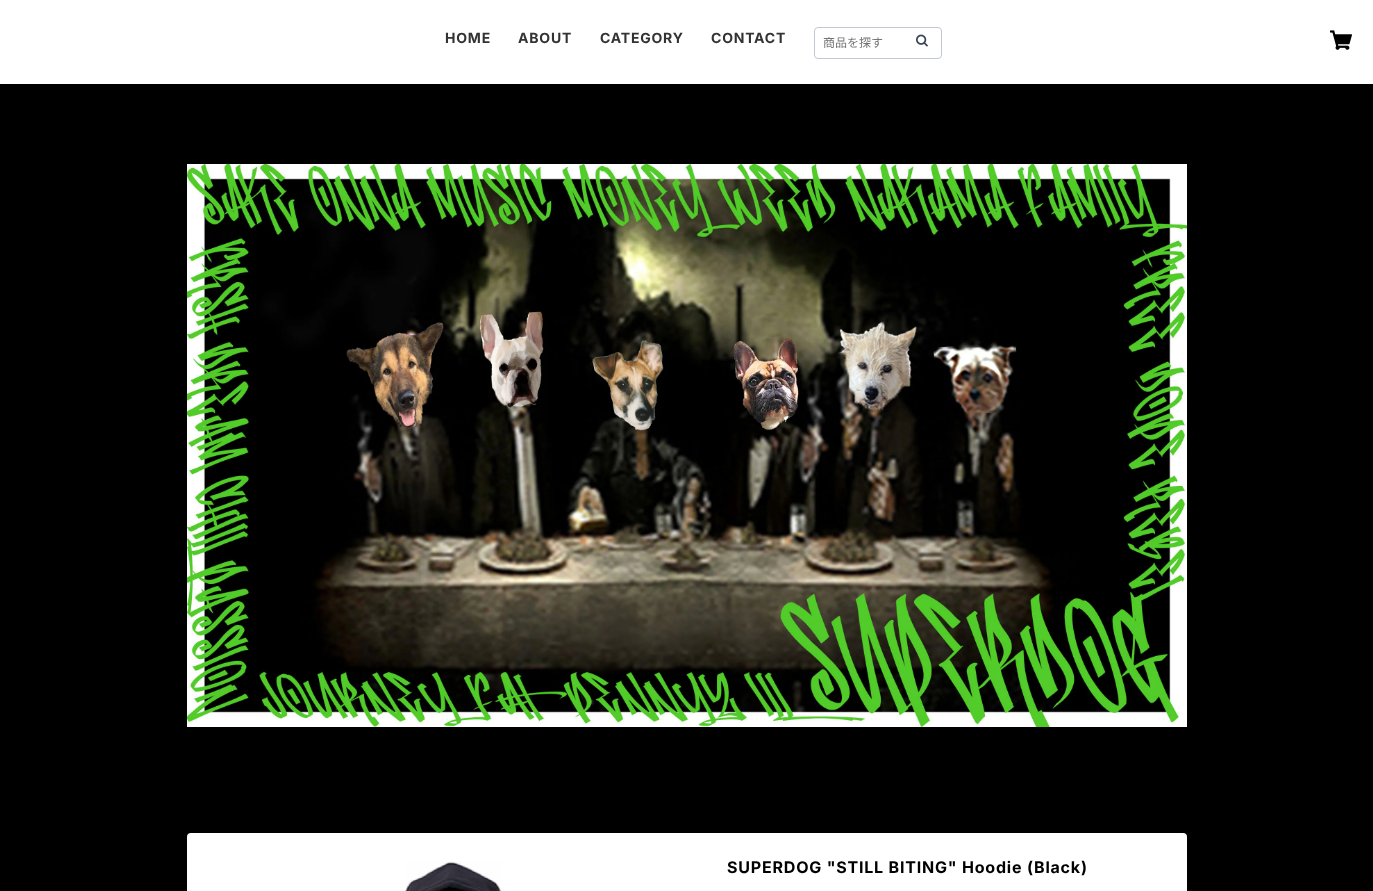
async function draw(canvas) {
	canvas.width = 1373;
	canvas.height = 891;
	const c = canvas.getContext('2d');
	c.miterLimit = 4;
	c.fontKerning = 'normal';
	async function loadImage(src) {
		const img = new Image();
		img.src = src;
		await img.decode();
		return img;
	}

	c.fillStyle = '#000';
	c.fillRect(0, 0, 1373, 891);
	c.fillStyle = '#fff';
	c.fillRect(0, 0, 1373, 84);
	c.letterSpacing = '0.8px';
	c.font = 'bold 14px Inter';
	c.fillStyle = '#333';
	for (const [text, x, y] of [
		['HOME', 445, 43],
		['ABOUT', 518, 43],
		['CATEGORY', 600, 43],
		['CONTACT', 711, 43],
	]) {
		c.fillText(text, x, y);
	}
	c.beginPath();
	c.roundRect(814.5, 27.5, 127, 31, 3.5);
	c.strokeStyle = '#c2c8d2';
	c.stroke();
	c.letterSpacing = '0px';
	c.font = '12px Noto Sans JP';
	c.fillStyle = '#757575';
	c.fillText('商品を探す', 823, 47);
	c.drawImage(await loadImage('img1.png'), 916, 34, 12, 13);
	c.drawImage(await loadImage('img2.png'), 187, 164, 1000, 563);
	c.fillStyle = '#fff';
	c.beginPath();
	c.roundRect(187, 833, 1000, 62, 4);
	c.fill();
	c.drawImage(await loadImage('img3.png'), 405, 861, 96, 30);
	c.letterSpacing = '0.8px';
	c.font = 'bold 16px Inter';
	c.fillStyle = '#000';
	c.fillText('SUPERDOG "STILL BITING" Hoodie (Black)', 727, 873);
	c.drawImage(await loadImage('img4.png'), 1330, 30, 22, 20);
}

draw(document.querySelector('canvas'));
